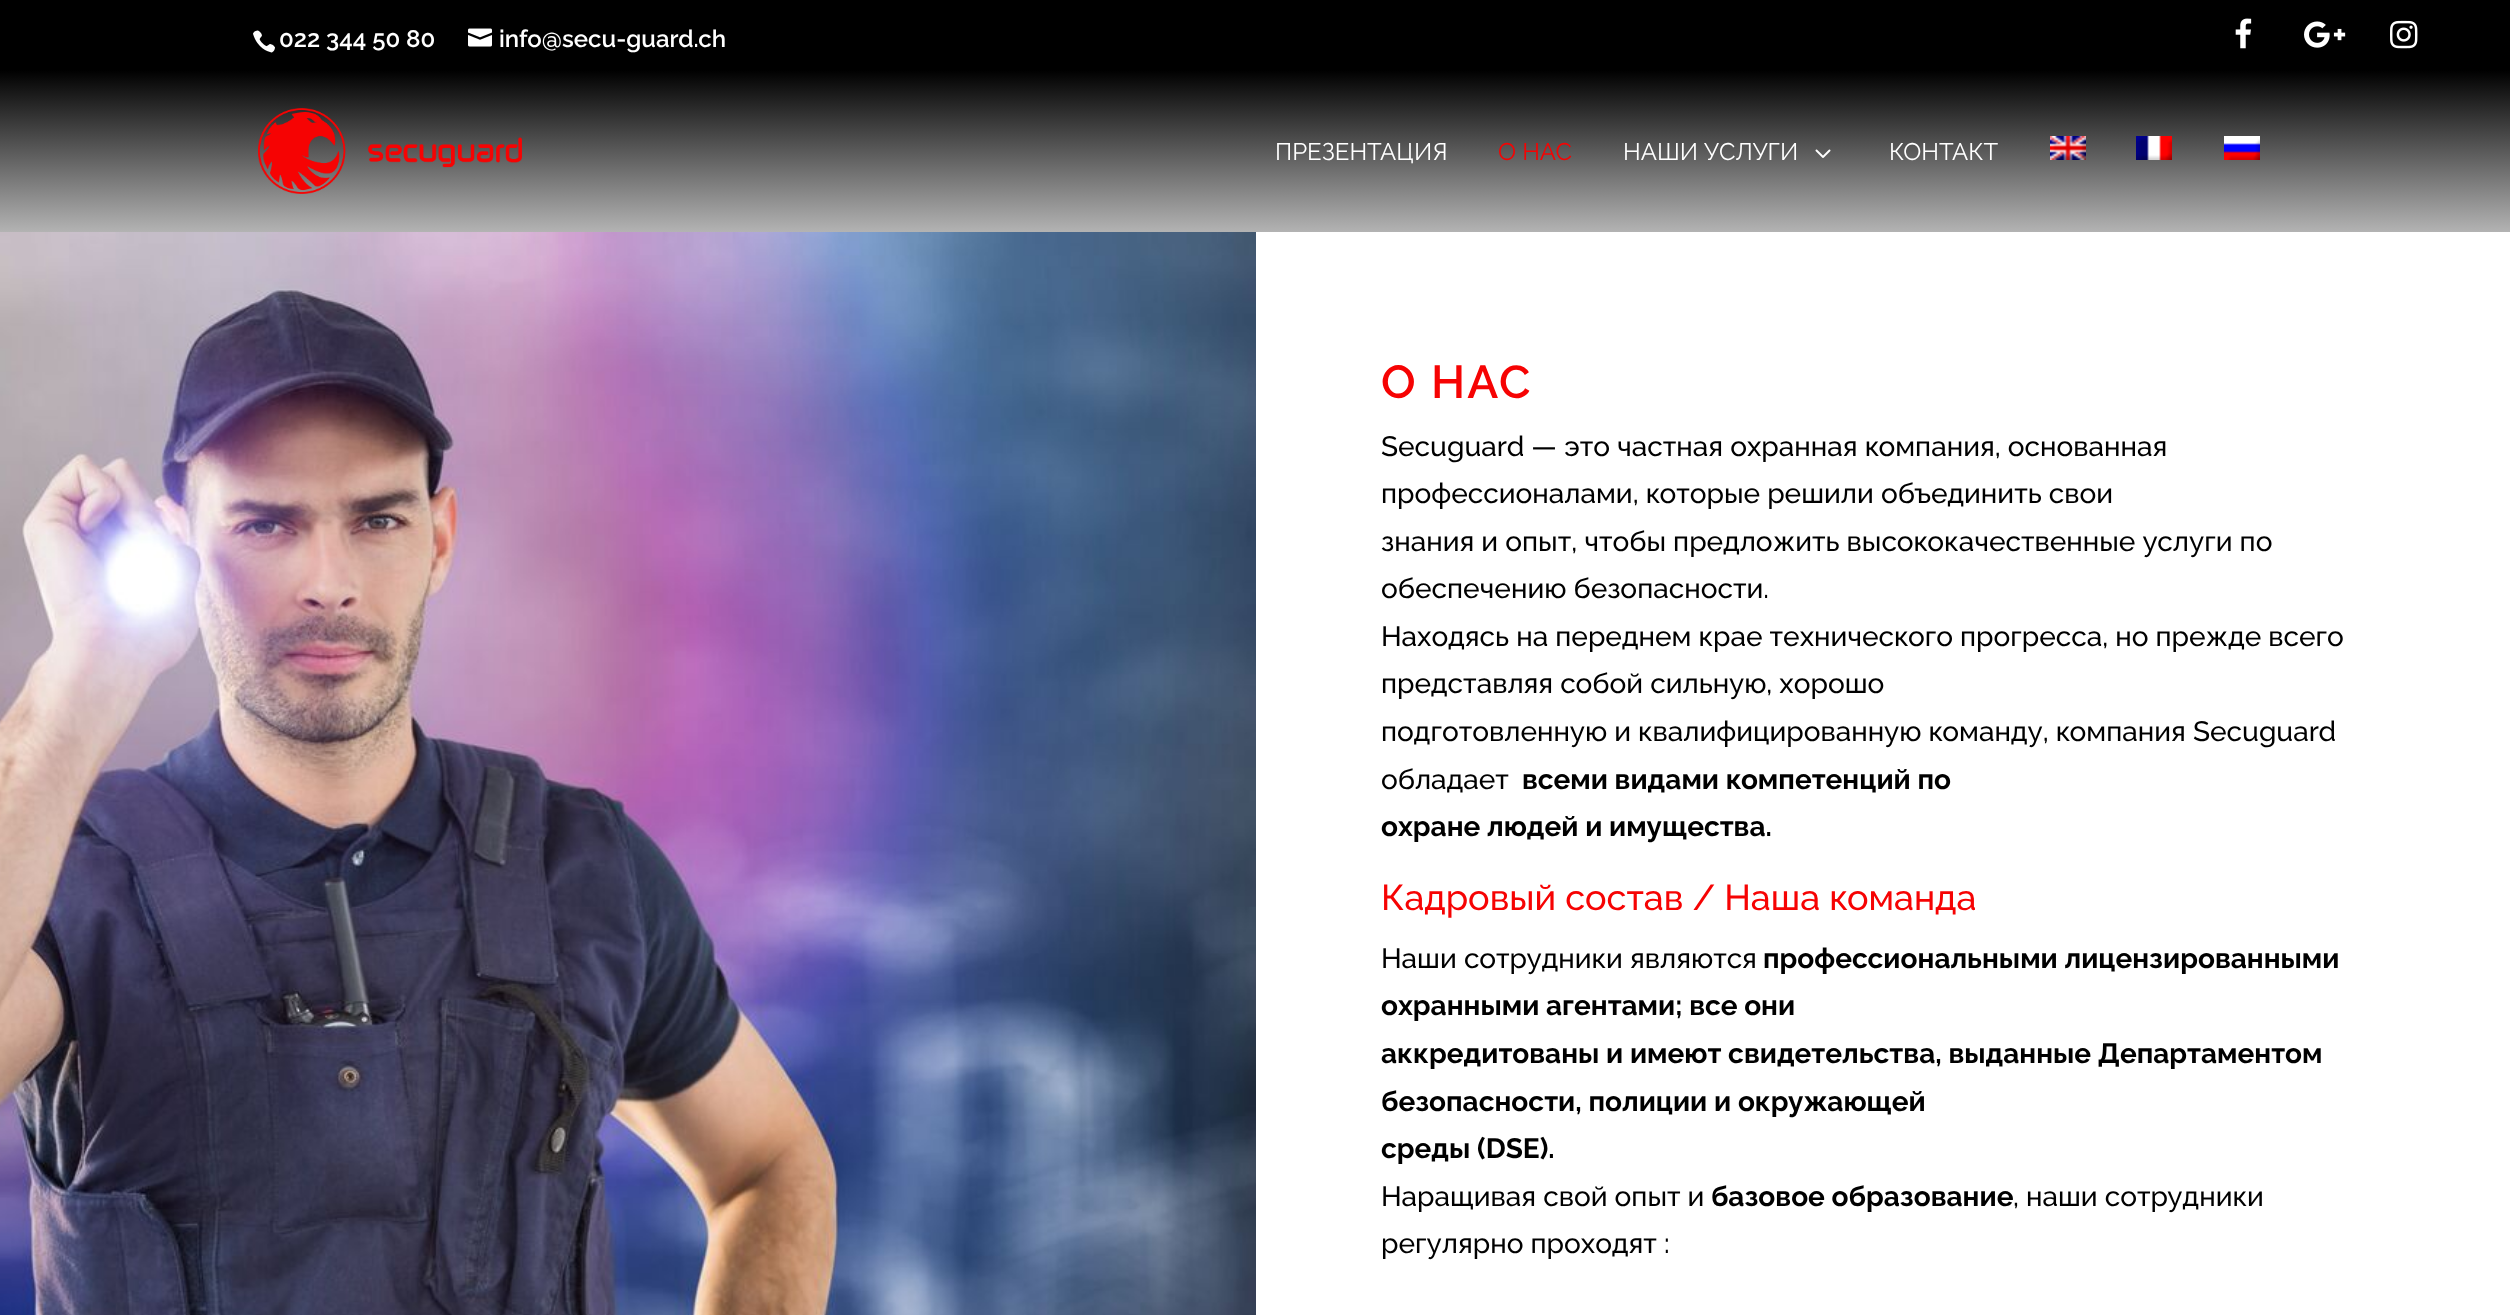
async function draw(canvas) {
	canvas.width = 2510;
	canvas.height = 1315;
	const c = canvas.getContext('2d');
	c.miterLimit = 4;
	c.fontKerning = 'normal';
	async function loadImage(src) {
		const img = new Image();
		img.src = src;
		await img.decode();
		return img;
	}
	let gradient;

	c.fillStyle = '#fff';
	c.fillRect(0, 0, 2510, 1315);
	c.fillStyle = '#000';
	c.fillRect(0, 0, 2510, 70);
	c.drawImage(await loadImage('img1.png'), 253, 30, 22, 23);
	c.font = '600 24px Raleway';
	c.fillStyle = '#fff';
	c.fillText('022 344 50 80', 279, 47);
	c.drawImage(await loadImage('img2.png'), 468, 28, 24, 19);
	c.fillText('info@secu-guard.ch', 499, 47);
	gradient = c.createLinearGradient(1255, 70, 1255, 232);
	gradient.addColorStop(0, '#000');
	gradient.addColorStop(1, '#b3b3b3');
	c.fillStyle = gradient;
	c.fillRect(0, 70, 2510, 162);
	c.drawImage(await loadImage('img3.png'), 2235, 18, 17, 31);
	c.drawImage(await loadImage('img4.png'), 2304, 21, 42, 27);
	c.drawImage(await loadImage('img5.png'), 2390, 20, 28, 29);
	c.drawImage(await loadImage('img6.png'), 258, 108, 264, 86);
	c.font = '24px Raleway';
	c.fillStyle = '#fff';
	c.fillText('ПРЕЗЕНТАЦИЯ', 1275, 160);
	c.fillStyle = '#f60303';
	c.fillText('О НАС', 1498, 160);
	c.fillStyle = '#fff';
	c.fillText('НАШИ УСЛУГИ', 1623, 160);
	c.drawImage(await loadImage('img7.png'), 1815, 149, 16, 9);
	c.fillText('КОНТАКТ', 1889, 160);
	c.drawImage(await loadImage('img8.png'), 2050, 136, 36, 24);
	c.drawImage(await loadImage('img9.png'), 2136, 136, 36, 24);
	c.drawImage(await loadImage('img10.png'), 2224, 136, 36, 24);
	c.drawImage(await loadImage('img11.png'), 0, 232, 1256, 1083);
	c.letterSpacing = '2px';
	c.font = '600 46px Raleway';
	c.fillStyle = '#f60303';
	c.fillText('О НАС', 1381, 398);
	c.letterSpacing = '0px';
	c.font = '500 28px Raleway';
	c.fillStyle = '#000';
	for (const [text, x, y] of [
		['Secuguard — это частная охранная компания, основанная', 1381, 456],
		['профессионалами, которые решили объединить свои', 1381, 503],
		['знания и опыт, чтобы предложить высококачественные услуги по', 1381, 551],
		['обеспечению безопасности.', 1381, 598],
		['Находясь на переднем крае технического прогресса, но прежде всего', 1381, 646],
		['представляя собой сильную, хорошо', 1381, 693],
		['подготовленную и квалифицированную команду, компания Secuguard', 1381, 741],
		['обладает', 1381, 789],
	]) {
		c.fillText(text, x, y);
	}
	c.font = 'bold 28px Raleway';
	c.fillText('всеми видами компетенций по', 1522, 789);
	c.fillText('охране людей и имущества.', 1381, 836);
	c.font = '500 36px Raleway';
	c.fillStyle = '#f60303';
	c.fillText('Кадровый состав / Наша команда', 1381, 910);
	c.font = '500 28px Raleway';
	c.fillStyle = '#000';
	c.fillText('Наши сотрудники являются', 1381, 968);
	c.font = 'bold 28px Raleway';
	for (const [text, x, y] of [
		['профессиональными лицензированными', 1763, 968],
		['охранными агентами; все они', 1381, 1015],
		['аккредитованы и имеют свидетельства, выданные Департаментом', 1381, 1063],
		['безопасности, полиции и окружающей', 1381, 1111],
		['среды (DSE).', 1381, 1158],
	]) {
		c.fillText(text, x, y);
	}
	c.font = '500 28px Raleway';
	c.fillText('Наращивая свой опыт и', 1381, 1206);
	c.font = 'bold 28px Raleway';
	c.fillText('базовое образование', 1711, 1206);
	c.font = '500 28px Raleway';
	c.fillText(', наши сотрудники', 2013, 1206);
	c.fillText('регулярно проходят :', 1381, 1253);
}

draw(document.querySelector('canvas'));
